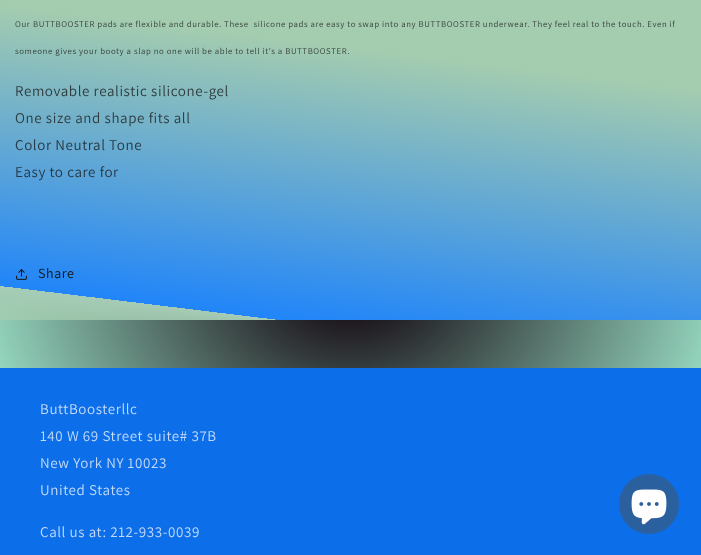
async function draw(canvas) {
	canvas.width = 701;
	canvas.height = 555;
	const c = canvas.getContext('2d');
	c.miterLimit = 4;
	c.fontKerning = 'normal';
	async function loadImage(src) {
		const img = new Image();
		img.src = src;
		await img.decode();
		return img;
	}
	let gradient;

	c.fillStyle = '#fff';
	c.fillRect(0, 0, 701, 555);
	gradient = c.createRadialGradient(351, 351.76, 0, 351, 351.76, 496);
	gradient.addColorStop(0.03, '#10020c');
	gradient.addColorStop(0.86, '#aaf8db');
	c.fillStyle = gradient;
	c.beginPath();
	c.rect(0, 287, 701, 81);
	c.save();
	c.clip();
	c.scale(1, 392 / 496);
	c.fillRect(0, 0, 701, 703);
	c.restore();
	gradient = c.createLinearGradient(312, 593, 389, -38);
	gradient.addColorStop(0.38, '#a4ccafcc');
	gradient.addColorStop(0.42, '#a6ccb7');
	gradient.addColorStop(0.42, '#2185f9');
	gradient.addColorStop(0.86, '#a4ccaf');
	c.fillStyle = gradient;
	c.fillRect(0, 0, 701, 320);
	c.letterSpacing = '0.6px';
	c.font = '8.75px Assistant';
	c.fillStyle = '#343f3a';
	for (const [text, x, y] of [
		['Our', 15, 27],
		['BUTTBOOSTER pads are flexible and durable. These  silicone pads are easy to swap into any BUTTBOOSTER underwear. They feel real to the touch. Even if', 33, 27],
		['someone gives your booty a slap no one will be able to tell it\'s a BUTTBOOSTER.', 15, 54],
	]) {
		c.fillText(text, x, y);
	}
	c.font = '15px Assistant';
	c.fillStyle = '#2e3c3e';
	c.fillText('Removable realistic silicone-gel', 15, 96);
	c.fillText('One size and shape fits all', 15, 123);
	c.fillStyle = '#273842';
	c.fillText('Color Neutral Tone', 15, 150);
	c.fillText('Easy to care for', 15, 177);
	c.drawImage(await loadImage('img1.png'), 16, 269, 11, 11);
	c.font = '14px Assistant';
	c.fillStyle = '#121212';
	c.fillText('Share', 38, 278);
	c.fillStyle = '#0d6ee9';
	c.fillRect(0, 368, 701, 187);
	c.font = '15px Assistant';
	c.fillStyle = '#c3dbfa';
	for (const [text, x, y] of [
		['ButtBoosterllc', 40, 414],
		['140 W 69 Street suite# 37B', 40, 441],
		['New York NY 10023', 40, 468],
		['United States', 40, 495],
		['Call us at: 212-933-0039', 40, 537],
	]) {
		c.fillText(text, x, y);
	}
	c.fillStyle = '#2b609e';
	c.beginPath();
	c.arc(649, 504, 30, 0, 2 * Math.PI);
	c.fill();
	c.drawImage(await loadImage('img2.png'), 631, 489, 36, 36);
}

draw(document.querySelector('canvas'));
